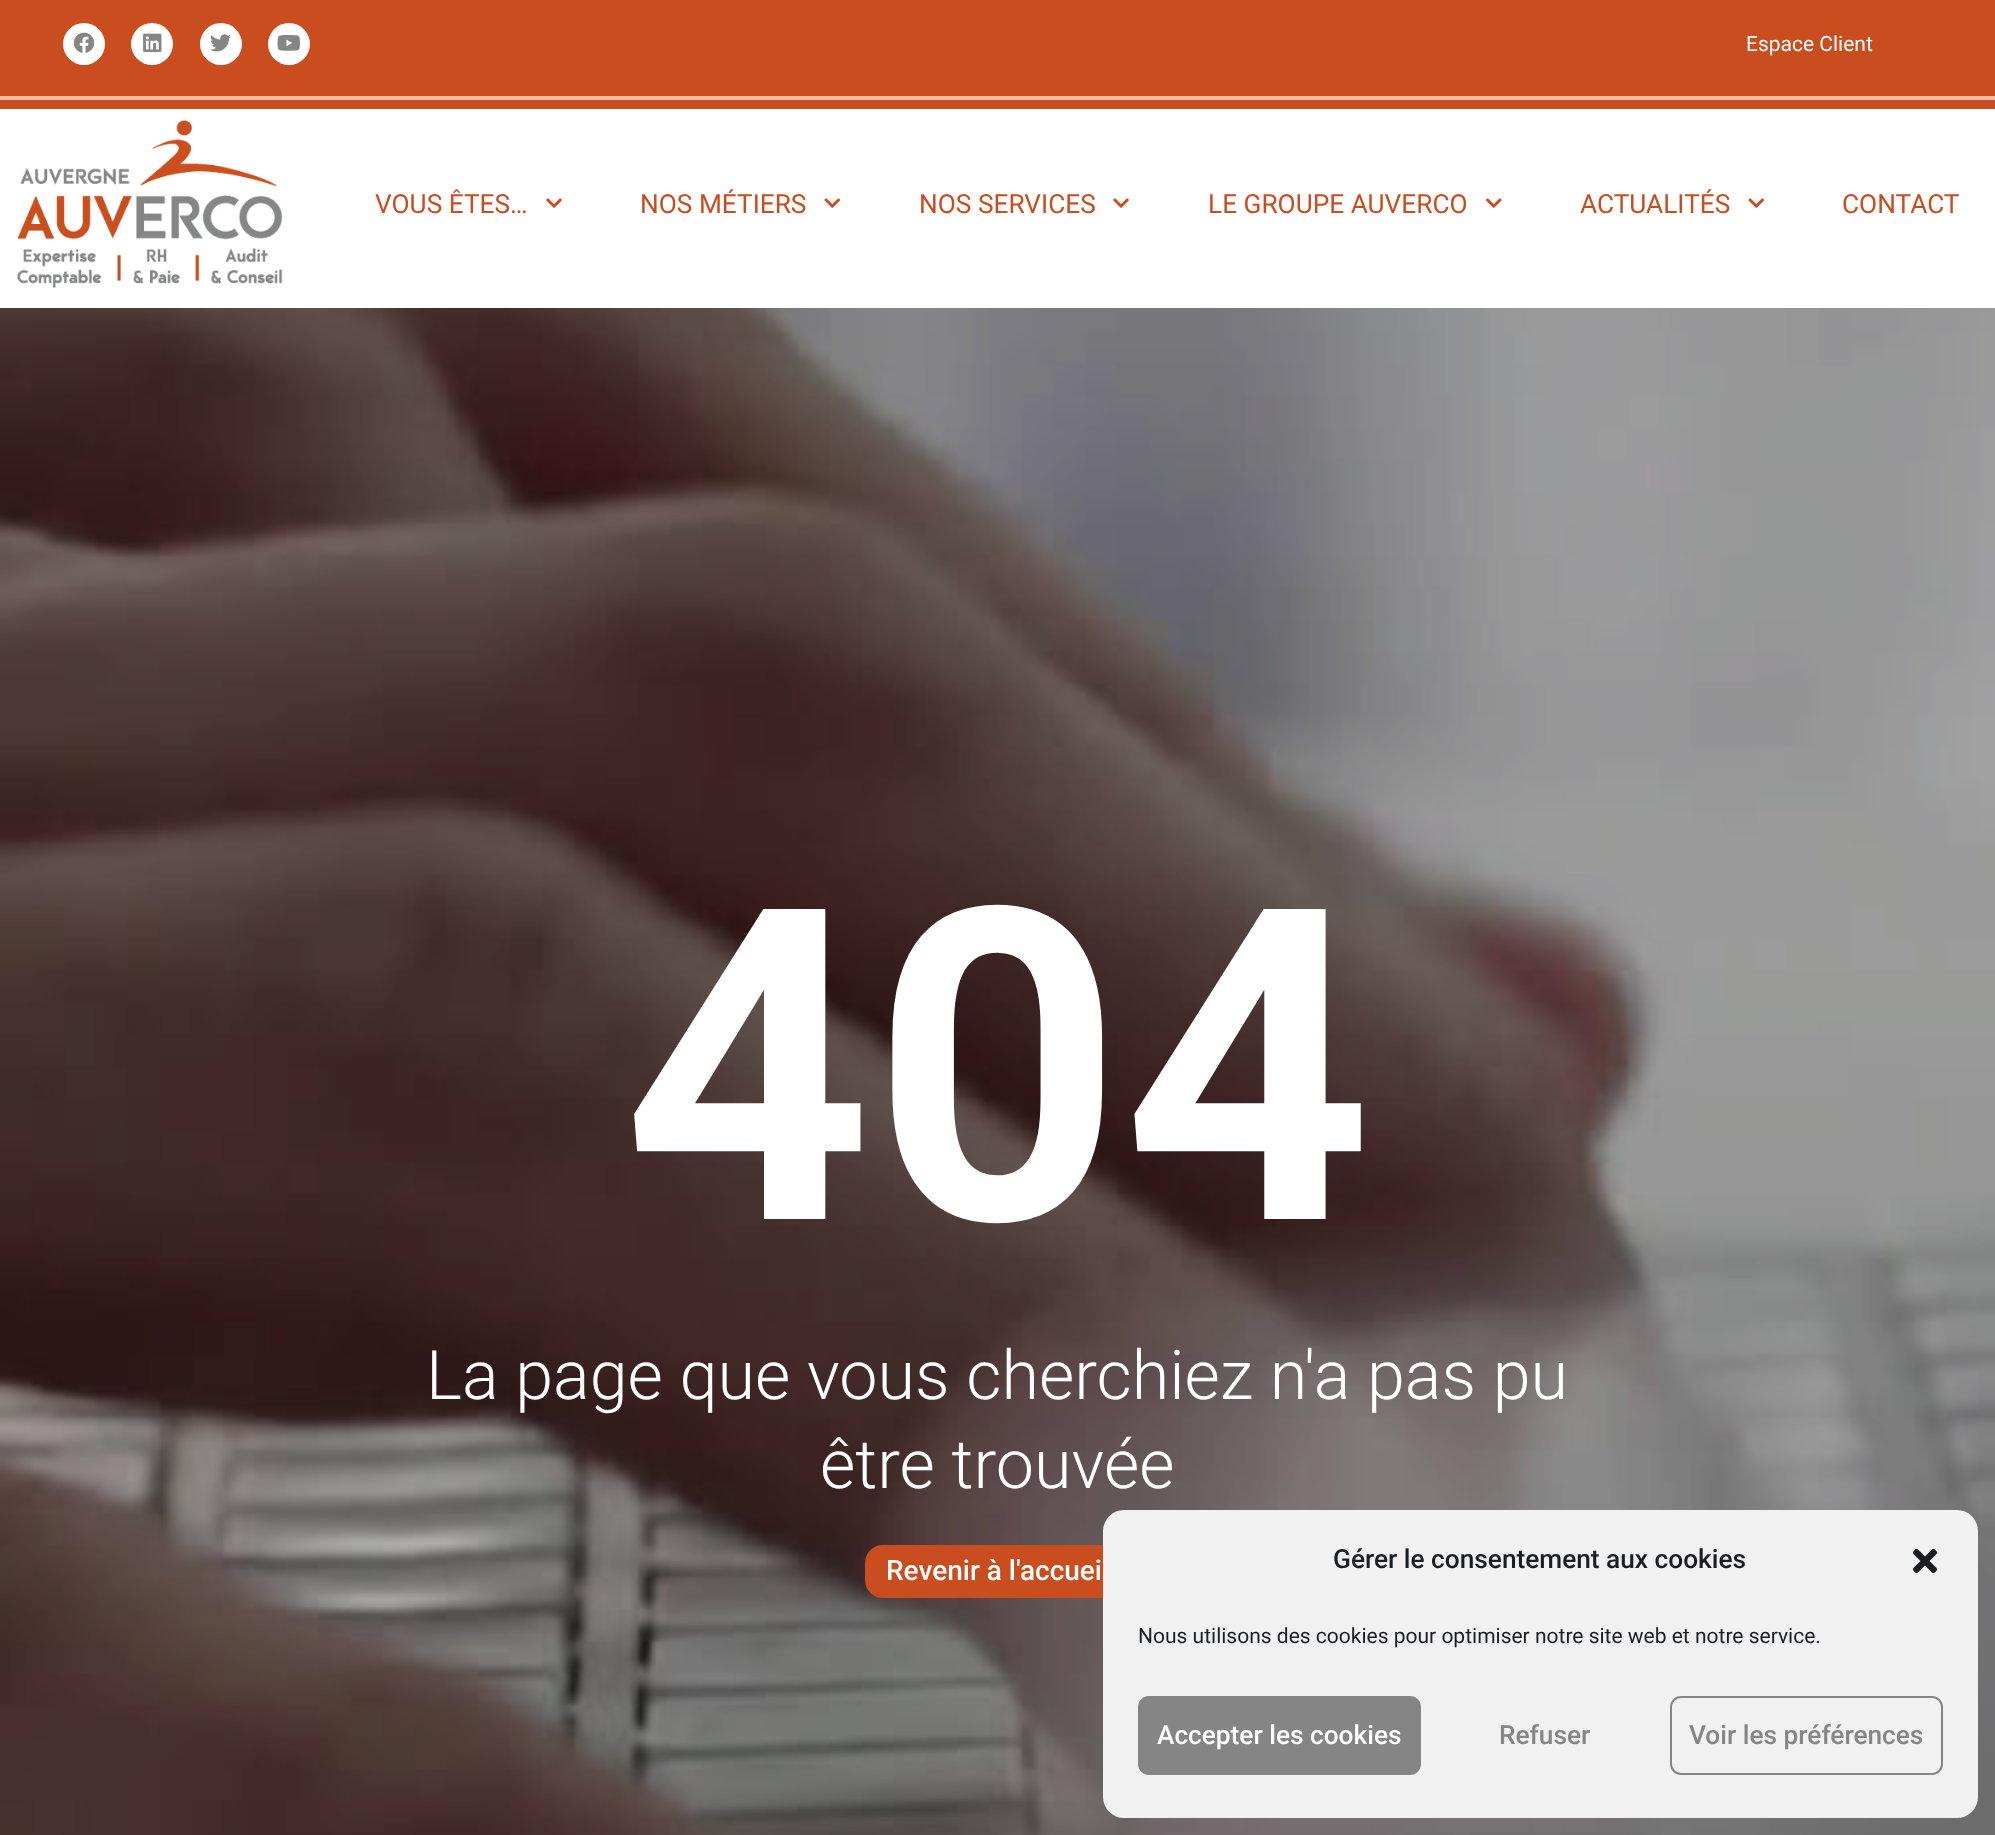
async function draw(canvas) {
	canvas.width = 1995;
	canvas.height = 1835;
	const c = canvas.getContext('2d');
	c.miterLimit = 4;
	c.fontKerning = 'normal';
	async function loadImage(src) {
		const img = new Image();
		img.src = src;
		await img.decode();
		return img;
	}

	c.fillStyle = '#fff';
	c.fillRect(0, 0, 1995, 1835);
	c.fillStyle = '#ca4d20';
	c.fillRect(0, 0, 1995, 109);
	c.fillStyle = '#fff';
	c.beginPath();
	c.arc(84, 44, 21, 0, 2 * Math.PI);
	c.fill();
	c.drawImage(await loadImage('img1.png'), 73, 32, 22, 21);
	c.beginPath();
	c.arc(152, 44, 21, 0, 2 * Math.PI);
	c.fill();
	c.drawImage(await loadImage('img2.png'), 143, 33, 19, 20);
	c.beginPath();
	c.arc(221, 44, 21, 0, 2 * Math.PI);
	c.fill();
	c.drawImage(await loadImage('img3.png'), 210, 34, 21, 18);
	c.beginPath();
	c.arc(289, 44, 21, 0, 2 * Math.PI);
	c.fill();
	c.drawImage(await loadImage('img4.png'), 277, 35, 23, 16);
	c.font = '21px Roboto';
	c.fillText('Espace Client', 1746, 51);
	c.fillStyle = '#ebbdac';
	c.fillRect(0, 96, 1995, 4);
	c.drawImage(await loadImage('img5.png'), 17, 119, 266, 169);
	c.font = '26.25px Roboto';
	c.fillStyle = '#ca4d20';
	c.fillText('VOUS ÊTES…', 375, 213);
	c.drawImage(await loadImage('img6.png'), 546, 198, 16, 10);
	c.fillText('NOS MÉTIERS', 640, 213);
	c.drawImage(await loadImage('img7.png'), 824, 198, 16, 10);
	c.fillText('NOS SERVICES', 919, 213);
	c.drawImage(await loadImage('img6.png'), 1113, 198, 16, 10);
	c.fillText('LE GROUPE AUVERCO', 1208, 213);
	c.drawImage(await loadImage('img8.png'), 1486, 198, 16, 10);
	c.fillText('ACTUALITÉS', 1580, 213);
	c.drawImage(await loadImage('img7.png'), 1748, 198, 16, 10);
	c.fillText('CONTACT', 1842, 213);
	c.drawImage(await loadImage('img9.png'), 0, 308, 1995, 1527);
	c.font = 'bold 436px Roboto';
	c.fillStyle = '#fff';
	c.fillText('404', 622, 1219);
	c.font = '300 68.25px Roboto';
	c.fillText('La page que vous cherchiez n\'a pas pu', 426, 1399);
	c.fillText('être trouvée', 820, 1488);
	c.fillStyle = '#ca4d20';
	c.beginPath();
	c.roundRect(867, 1547, 262, 49, 16);
	c.fill();
	c.strokeStyle = '#ca4d20';
	c.lineWidth = 4;
	c.stroke();
	c.font = '500 28px Roboto';
	c.fillStyle = '#fff';
	c.fillText('Revenir à l\'accuei', 886, 1580);
	c.fillStyle = '#f1f1f1';
	c.beginPath();
	c.roundRect(1103, 1510, 875, 308, 21);
	c.fill();
	c.font = '500 26.25px Roboto';
	c.fillStyle = '#191e23';
	c.fillText('Gérer le consentement aux cookies', 1333, 1568);
	c.drawImage(await loadImage('img10.png'), 1913, 1549, 24, 24);
	c.font = '21px Roboto';
	c.fillText('Nous utilisons des cookies pour optimiser notre site web et notre service.', 1138, 1643);
	c.fillStyle = '#858585';
	c.beginPath();
	c.roundRect(1139, 1697, 281, 77, 10);
	c.fill();
	c.strokeStyle = '#858585';
	c.lineWidth = 2;
	c.stroke();
	c.font = '500 26.25px Roboto';
	c.fillStyle = '#fff';
	c.fillText('Accepter les cookies', 1157, 1744);
	c.fillStyle = '#858585';
	c.fillText('Refuser', 1499, 1744);
	c.beginPath();
	c.roundRect(1671, 1697, 271, 77, 10);
	c.stroke();
	c.fillText('Voir les préférences', 1689, 1744);
}

draw(document.querySelector('canvas'));
